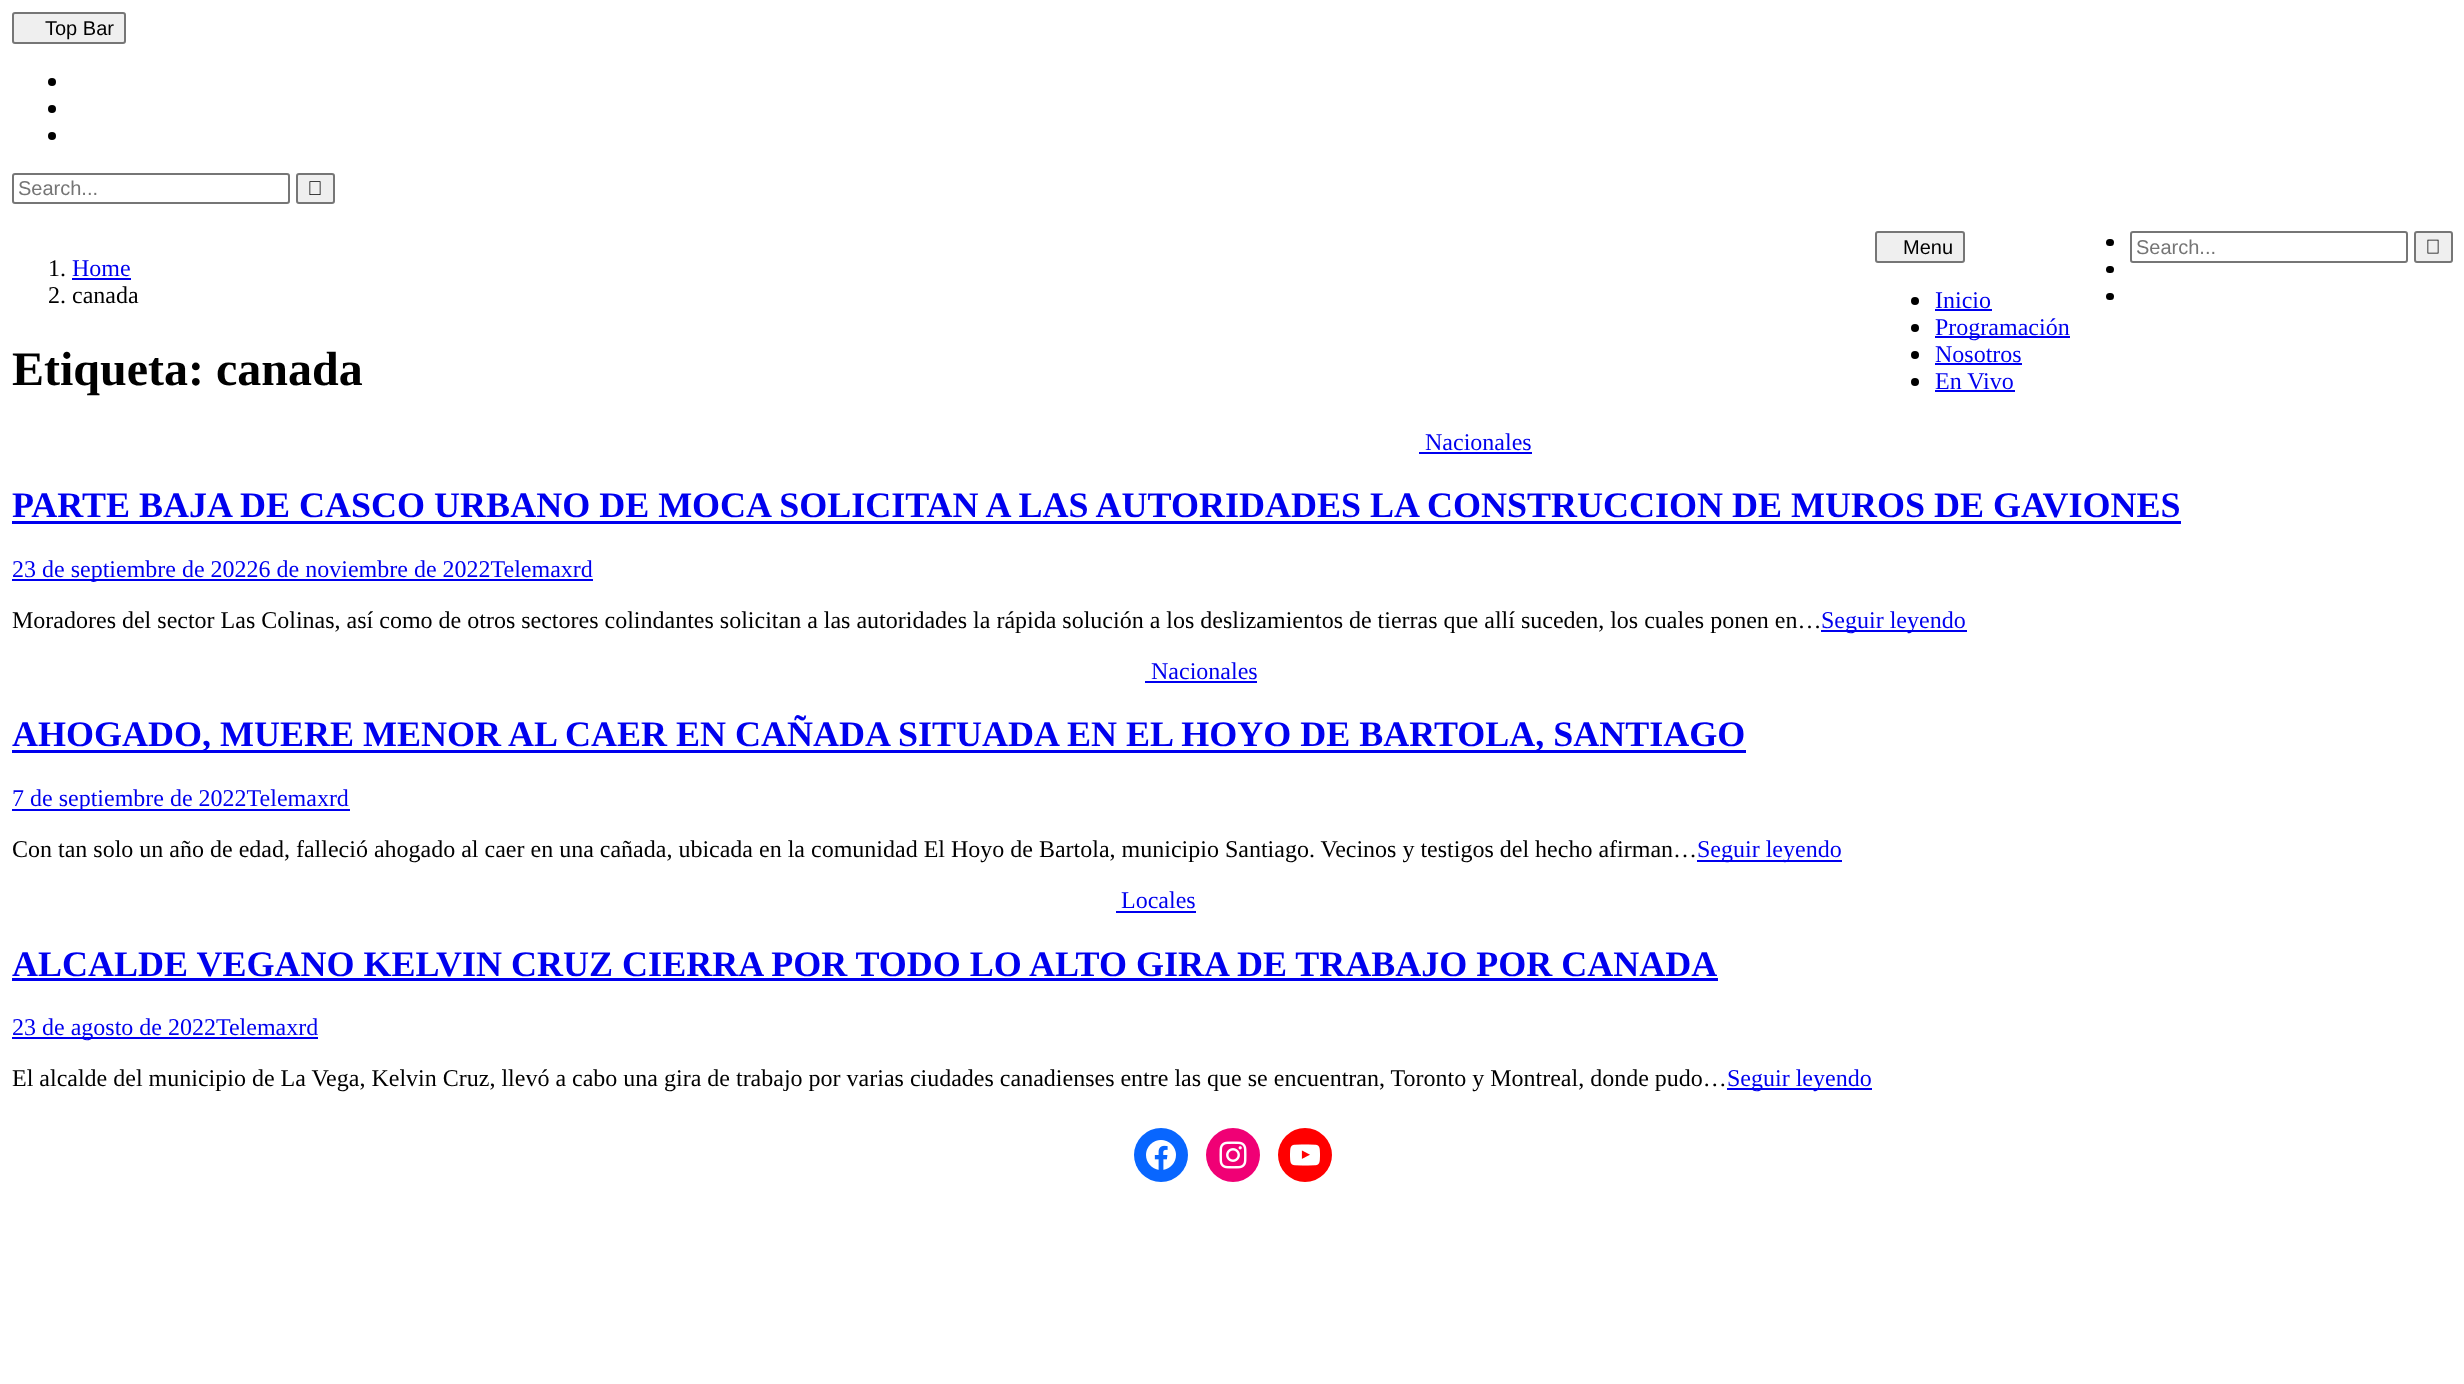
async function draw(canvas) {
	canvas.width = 2464;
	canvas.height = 1384;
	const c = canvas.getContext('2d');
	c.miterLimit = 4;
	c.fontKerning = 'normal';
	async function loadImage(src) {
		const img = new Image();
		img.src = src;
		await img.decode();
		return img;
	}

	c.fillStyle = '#fff';
	c.fillRect(0, 0, 2464, 1384);
	c.fillStyle = '#efefef';
	c.beginPath();
	c.roundRect(13, 13, 112, 30, 2);
	c.fill();
	c.strokeStyle = '#767676';
	c.lineWidth = 2;
	c.stroke();
	c.font = '20px Liberation Sans';
	c.fillStyle = '#000';
	c.fillText('Top Bar', 45, 35);
	c.beginPath();
	c.arc(52, 82, 4, 0, 2 * Math.PI);
	c.fill();
	c.beginPath();
	c.arc(52, 109, 4, 0, 2 * Math.PI);
	c.fill();
	c.beginPath();
	c.arc(52, 136, 4, 0, 2 * Math.PI);
	c.fill();
	c.beginPath();
	c.roundRect(13, 174, 276, 29, 2);
	c.stroke();
	c.fillStyle = '#757575';
	c.fillText('Search...', 18, 195);
	c.fillStyle = '#efefef';
	c.beginPath();
	c.roundRect(297, 174, 37, 29, 2);
	c.fill();
	c.stroke();
	c.drawImage(await loadImage('img1.png'), 309, 181, 12, 14);
	c.fillStyle = '#000';
	c.beginPath();
	c.roundRect(2106, 239, 8, 7, 3.5);
	c.fill();
	c.beginPath();
	c.roundRect(2106, 266, 8, 7, 3.5);
	c.fill();
	c.beginPath();
	c.roundRect(2106, 293, 8, 7, 3.5);
	c.fill();
	c.beginPath();
	c.roundRect(2131, 232, 276, 30, 2);
	c.stroke();
	c.fillStyle = '#757575';
	c.fillText('Search...', 2136, 254);
	c.fillStyle = '#efefef';
	c.beginPath();
	c.roundRect(2415, 232, 37, 30, 2);
	c.fill();
	c.stroke();
	c.drawImage(await loadImage('img2.png'), 2427, 239, 12, 15);
	c.beginPath();
	c.roundRect(1876, 232, 88, 30, 2);
	c.fill();
	c.stroke();
	c.fillStyle = '#000';
	c.fillText('Menu', 1903, 254);
	c.beginPath();
	c.arc(1915, 301, 4, 0, 2 * Math.PI);
	c.fill();
	c.font = '24px Liberation Serif';
	c.fillStyle = '#00e';
	c.fillText('Inicio', 1935, 308);
	c.fillRect(1935, 309, 57, 2);
	c.fillStyle = '#000';
	c.beginPath();
	c.arc(1915, 328, 4, 0, 2 * Math.PI);
	c.fill();
	c.fillStyle = '#00e';
	c.fillRect(1935, 336, 135, 2);
	c.fillText('Programación', 1935, 335);
	c.fillStyle = '#000';
	c.beginPath();
	c.arc(1915, 355, 4, 0, 2 * Math.PI);
	c.fill();
	c.fillStyle = '#00e';
	c.fillText('Nosotros', 1935, 362);
	c.fillRect(1935, 363, 87, 2);
	c.fillStyle = '#000';
	c.beginPath();
	c.arc(1915, 382, 4, 0, 2 * Math.PI);
	c.fill();
	c.fillStyle = '#00e';
	c.fillText('En Vivo', 1935, 389);
	c.fillRect(1935, 390, 80, 2);
	c.fillStyle = '#000';
	c.fillText('1.', 48, 276);
	c.fillStyle = '#00e';
	c.fillText('Home', 72, 276);
	c.fillRect(72, 278, 59, 2);
	c.fillStyle = '#000';
	c.fillText('2. canada', 48, 303);
	c.font = 'bold 48px Liberation Serif';
	c.fillText('Etiqueta: canada', 12, 385);
	c.font = '24px Liberation Serif';
	c.fillStyle = '#00e';
	c.fillText('Nacionales', 1425, 450);
	c.fillRect(1419, 452, 113, 2);
	c.font = 'bold 36px Liberation Serif';
	c.fillText('PARTE BAJA DE CASCO URBANO DE MOCA SOLICITAN A LAS AUTORIDADES LA CONSTRUCCION DE MUROS DE GAVIONES', 12, 517);
	c.fillRect(12, 521, 2169, 3);
	c.fillRect(12, 579, 581, 2);
	c.font = '24px Liberation Serif';
	c.fillText('23 de septiembre de 20226 de noviembre de 2022Telemaxrd', 12, 577);
	c.fillStyle = '#000';
	c.fillText('Moradores del sector Las Colinas, así como de otros sectores colindantes solicitan a las autoridades la rápida solución a los deslizamientos de tierras que allí suceden, los cuales ponen en…', 12, 628);
	c.fillStyle = '#00e';
	c.fillRect(1821, 630, 146, 2);
	c.fillText('Seguir leyendo', 1821, 628);
	c.fillText('Nacionales', 1151, 679);
	c.fillRect(1145, 681, 112, 2);
	c.fillRect(12, 750, 1734, 3);
	c.font = 'bold 36px Liberation Serif';
	c.fillText('AHOGADO, MUERE MENOR AL CAER EN CAÑADA SITUADA EN EL HOYO DE BARTOLA, SANTIAGO', 12, 746);
	c.fillRect(12, 809, 338, 2);
	c.font = '24px Liberation Serif';
	c.fillText('7 de septiembre de 2022Telemaxrd', 12, 806);
	c.fillStyle = '#000';
	c.fillText('Con tan solo un año de edad, falleció ahogado al caer en una cañada, ubicada en la comunidad El Hoyo de Bartola, municipio Santiago. Vecinos y testigos del hecho afirman…', 12, 857);
	c.fillStyle = '#00e';
	c.fillRect(1697, 860, 145, 2);
	c.fillText('Seguir leyendo', 1697, 857);
	c.fillText('Locales', 1121, 908);
	c.fillRect(1116, 911, 80, 2);
	c.font = 'bold 36px Liberation Serif';
	c.fillText('ALCALDE VEGANO KELVIN CRUZ CIERRA POR TODO LO ALTO GIRA DE TRABAJO POR CANADA', 12, 976);
	c.fillRect(12, 978, 1706, 3);
	c.fillRect(12, 1037, 306, 2);
	c.font = '24px Liberation Serif';
	c.fillText('23 de agosto de 2022Telemaxrd', 12, 1035);
	c.fillStyle = '#000';
	c.fillText('El alcalde del municipio de La Vega, Kelvin Cruz, llevó a cabo una gira de trabajo por varias ciudades canadienses entre las que se encuentran, Toronto y Montreal, donde pudo…', 12, 1086);
	c.fillStyle = '#00e';
	c.fillRect(1727, 1088, 145, 2);
	c.fillText('Seguir leyendo', 1727, 1086);
	c.fillStyle = '#0866ff';
	c.beginPath();
	c.arc(1161, 1155, 27, 0, 2 * Math.PI);
	c.fill();
	c.drawImage(await loadImage('img3.png'), 1146, 1140, 30, 30);
	c.fillStyle = '#f00075';
	c.beginPath();
	c.arc(1233, 1155, 27, 0, 2 * Math.PI);
	c.fill();
	c.drawImage(await loadImage('img4.png'), 1219, 1141, 28, 28);
	c.fillStyle = '#f00';
	c.beginPath();
	c.arc(1305, 1155, 27, 0, 2 * Math.PI);
	c.fill();
	c.drawImage(await loadImage('img5.png'), 1290, 1144, 30, 22);
}

draw(document.querySelector('canvas'));
